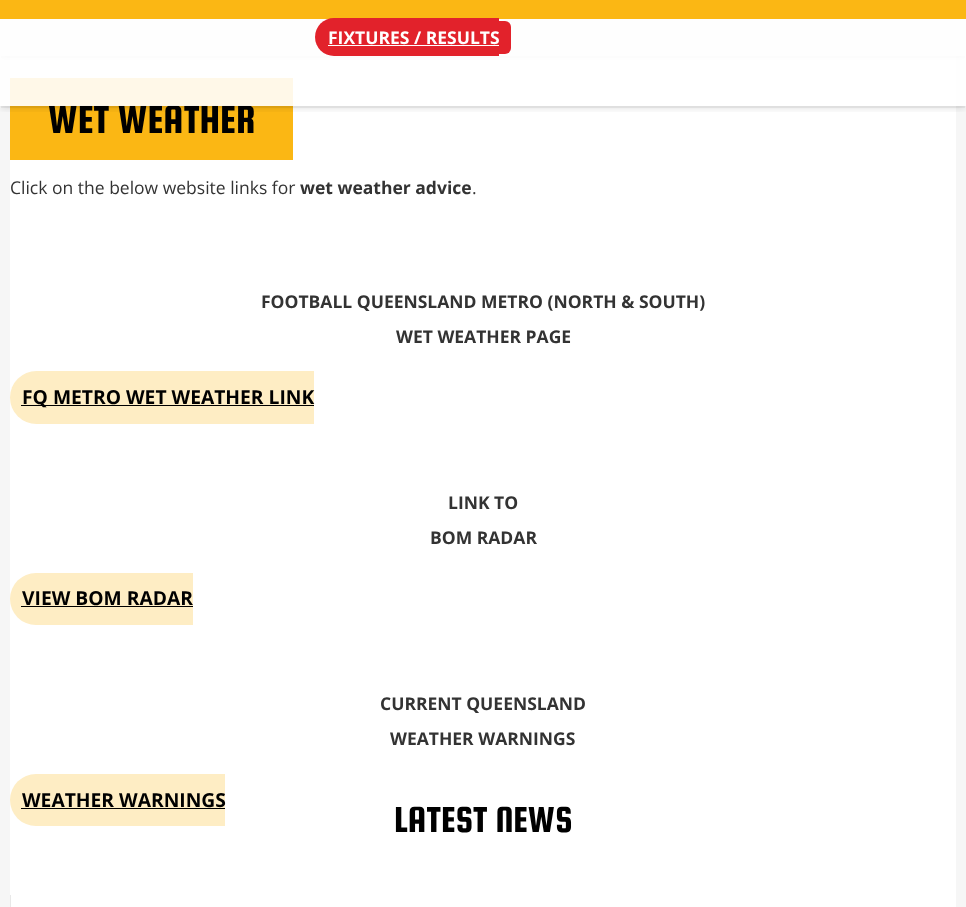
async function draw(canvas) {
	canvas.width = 966;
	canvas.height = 907;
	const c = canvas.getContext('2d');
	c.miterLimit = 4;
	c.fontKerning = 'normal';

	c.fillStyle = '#f6f6f6';
	c.fillRect(0, 0, 966, 907);
	for (const [x, y, w, h, color] of [
		[0, 19, 966, 37, '#fefefe'],
		[10, 56, 946, 851, '#fff'],
		[0, 0, 966, 19, '#fbb714'],
	]) {
		c.fillStyle = color;
		c.fillRect(x, y, w, h);
	}
	c.save();
	c.beginPath();
	c.rect(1, 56, 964, 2);
	c.clip();
	c.fillStyle = '#0000000d';
	c.filter = 'blur(0.5px)';
	c.beginPath();
	c.rect(1, 23, 964, 35);
	c.fill();
	c.filter = 'none';
	c.restore();
	c.save();
	c.beginPath();
	c.rect(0, 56, 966, 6);
	c.clip();
	c.fillStyle = '#0000001a';
	c.filter = 'blur(3px)';
	c.beginPath();
	c.rect(1, 24, 964, 35);
	c.fill();
	c.filter = 'none';
	c.restore();
	c.fillRect(10, 78, 283, 82);
	c.save();
	c.beginPath();
	c.rect(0, 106, 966, 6);
	c.clip();
	c.fillStyle = '#0000001a';
	c.filter = 'blur(3px)';
	c.beginPath();
	c.rect(1, 61, 964, 48);
	c.fill();
	c.filter = 'none';
	c.restore();
	c.fillStyle = '#e2222b';
	c.beginPath();
	c.roundRect(315, 18, 184, 38, [19, 0, 0, 19]);
	c.fill();
	c.font = 'bold 17.5px Open Sans';
	c.fillStyle = '#fff';
	c.fillText('FIXTURES / RESULTS', 328, 44);
	c.fillStyle = '#e2222b';
	c.beginPath();
	c.roundRect(499, 21, 12, 33, [0, 6, 6, 0]);
	c.fill();
	c.fillStyle = '#fff';
	c.fillRect(328, 45, 171, 1);
	c.save();
	c.beginPath();
	c.rect(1, 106, 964, 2);
	c.clip();
	c.fillStyle = '#0000000d';
	c.filter = 'blur(0.5px)';
	c.beginPath();
	c.rect(1, 60, 964, 48);
	c.fill();
	c.filter = 'none';
	c.restore();
	c.font = '42px Squada One';
	c.fillStyle = '#000';
	c.fillText('WET WEATHER', 48, 133);
	c.fillStyle = '#ffffffe6';
	c.fillRect(0, 56, 966, 50);
	c.font = '17.5px Open Sans';
	c.fillStyle = '#333';
	c.fillText('Click on the below website links for', 10, 194);
	c.font = 'bold 17.5px Open Sans';
	c.fillText('wet weather advice', 300, 194);
	c.font = '17.5px Open Sans';
	c.fillText('.', 472, 194);
	c.font = 'bold 17.5px Open Sans';
	c.fillText('FOOTBALL QUEENSLAND METRO (NORTH & SOUTH)', 261, 308);
	c.fillText('WET WEATHER PAGE', 396, 343);
	c.fillStyle = '#feedc4';
	c.beginPath();
	c.roundRect(10, 371, 304, 53, [26.5, 0, 0, 26.5]);
	c.fill();
	c.fillStyle = '#000';
	c.fillRect(21, 405, 293, 1);
	c.font = 'bold 19.25px Open Sans';
	c.fillText('FQ METRO WET WEATHER LINK', 22, 404);
	c.font = 'bold 17.5px Open Sans';
	c.fillStyle = '#333';
	c.fillText('LINK TO', 448, 509);
	c.fillText('BOM RADAR', 430, 544);
	c.fillStyle = '#feedc4';
	c.beginPath();
	c.roundRect(10, 573, 183, 52, [26, 0, 0, 26]);
	c.fill();
	c.font = 'bold 19.25px Open Sans';
	c.fillStyle = '#000';
	c.fillText('VIEW BOM RADAR', 22, 605);
	c.fillRect(21, 606, 172, 1);
	c.font = 'bold 17.5px Open Sans';
	c.fillStyle = '#333';
	c.fillText('CURRENT QUEENSLAND', 380, 710);
	c.fillText('WEATHER WARNINGS', 390, 745);
	c.fillStyle = '#feedc4';
	c.beginPath();
	c.roundRect(10, 774, 215, 52, [26, 0, 0, 26]);
	c.fill();
	c.font = 'bold 19.25px Open Sans';
	c.fillStyle = '#000';
	c.fillText('WEATHER WARNINGS', 22, 807);
	c.fillRect(21, 808, 204, 1);
	c.font = '38.5px Squada One';
	c.fillText('LATEST NEWS', 394, 832);
	c.fillStyle = '#e8e8e8';
	c.fillRect(10, 895, 1, 12);
}

draw(document.querySelector('canvas'));
